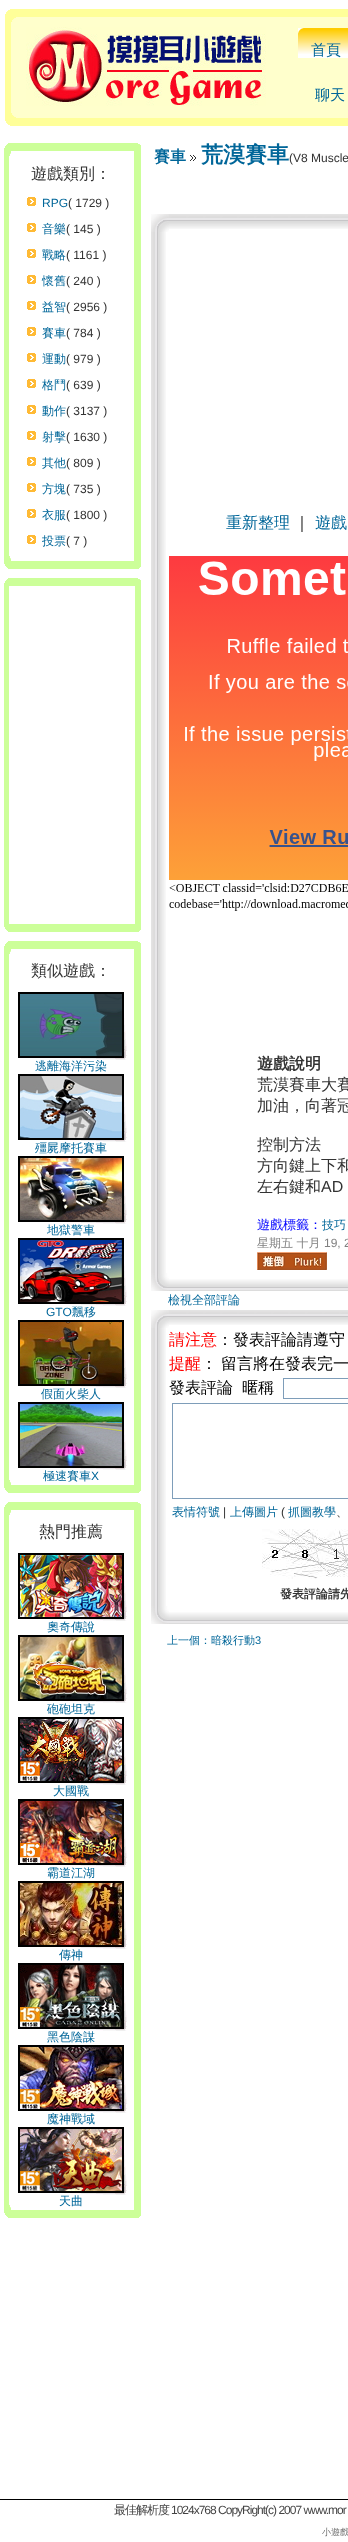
async function draw(canvas) {
	canvas.width = 348;
	canvas.height = 2542;
	const c = canvas.getContext('2d');
	c.miterLimit = 4;
	c.fontKerning = 'normal';
	async function loadImage(src) {
		const img = new Image();
		img.src = src;
		await img.decode();
		return img;
	}

	c.fillStyle = '#fff';
	c.fillRect(0, 0, 348, 2542);
	c.drawImage(await loadImage('img1.png'), 5, 10, 5, 6);
	c.fillStyle = '#ff9';
	c.fillRect(10, 9, 338, 7);
	c.fillRect(5, 16, 343, 103);
	c.drawImage(await loadImage('img2.png'), 11, 18, 5, 6);
	c.fillStyle = '#ffc';
	c.fillRect(16, 17, 332, 7);
	c.fillRect(11, 24, 337, 87);
	c.drawImage(await loadImage('img3.png'), 26, 27, 240, 79);
	c.drawImage(await loadImage('img4.png'), 298, 28, 50, 30);
	c.font = '500 15px WenQuanYi Zen Hei';
	c.fillStyle = '#069';
	c.fillText('首頁', 311, 55);
	c.fillText('聊天', 315, 100);
	c.drawImage(await loadImage('img5.png'), 11, 111, 5, 6);
	c.fillStyle = '#ffc';
	c.fillRect(16, 111, 332, 7);
	c.drawImage(await loadImage('img6.png'), 5, 119, 5, 6);
	c.fillStyle = '#ff9';
	c.fillRect(10, 119, 338, 7);
	c.drawImage(await loadImage('img7.png'), 4, 144, 4, 6);
	c.fillStyle = '#cf9';
	c.fillRect(8, 143, 129, 7);
	c.drawImage(await loadImage('img8.png'), 137, 143, 4, 7);
	c.fillRect(4, 150, 137, 412);
	c.drawImage(await loadImage('img9.png'), 9, 153, 2, 5);
	c.fillStyle = '#fff';
	c.fillRect(11, 151, 123, 7);
	c.fillRect(9, 158, 125, 396);
	c.font = '500 16px WenQuanYi Zen Hei';
	c.fillStyle = '#333';
	c.fillText('遊戲類別：', 31, 179);
	c.drawImage(await loadImage('img10.png'), 27, 197, 9, 9);
	c.font = '12px Liberation Sans';
	c.fillStyle = '#069';
	c.fillText('RPG', 42, 207);
	c.fillStyle = '#333';
	c.fillText('( 1729 )', 68, 207);
	c.drawImage(await loadImage('img10.png'), 27, 223, 9, 9);
	c.font = '500 12px WenQuanYi Zen Hei';
	c.fillStyle = '#069';
	c.fillText('音樂', 42, 233);
	c.font = '12px Liberation Sans';
	c.fillStyle = '#333';
	c.fillText('( 145 )', 66, 233);
	c.drawImage(await loadImage('img10.png'), 27, 249, 9, 9);
	c.font = '500 12px WenQuanYi Zen Hei';
	c.fillStyle = '#069';
	c.fillText('戰略', 42, 259);
	c.font = '12px Liberation Sans';
	c.fillStyle = '#333';
	c.fillText('( 1161 )', 66, 259);
	c.drawImage(await loadImage('img10.png'), 27, 275, 9, 9);
	c.font = '500 12px WenQuanYi Zen Hei';
	c.fillStyle = '#069';
	c.fillText('懷舊', 42, 285);
	c.font = '12px Liberation Sans';
	c.fillStyle = '#333';
	c.fillText('( 240 )', 66, 285);
	c.drawImage(await loadImage('img10.png'), 27, 301, 9, 9);
	c.font = '500 12px WenQuanYi Zen Hei';
	c.fillStyle = '#069';
	c.fillText('益智', 42, 311);
	c.font = '12px Liberation Sans';
	c.fillStyle = '#333';
	c.fillText('( 2956 )', 66, 311);
	c.drawImage(await loadImage('img10.png'), 27, 327, 9, 9);
	c.font = '500 12px WenQuanYi Zen Hei';
	c.fillStyle = '#069';
	c.fillText('賽車', 42, 337);
	c.font = '12px Liberation Sans';
	c.fillStyle = '#333';
	c.fillText('( 784 )', 66, 337);
	c.drawImage(await loadImage('img10.png'), 27, 353, 9, 9);
	c.font = '500 12px WenQuanYi Zen Hei';
	c.fillStyle = '#069';
	c.fillText('運動', 42, 363);
	c.font = '12px Liberation Sans';
	c.fillStyle = '#333';
	c.fillText('( 979 )', 66, 363);
	c.drawImage(await loadImage('img10.png'), 27, 379, 9, 9);
	c.font = '500 12px WenQuanYi Zen Hei';
	c.fillStyle = '#069';
	c.fillText('格鬥', 42, 389);
	c.font = '12px Liberation Sans';
	c.fillStyle = '#333';
	c.fillText('( 639 )', 66, 389);
	c.drawImage(await loadImage('img10.png'), 27, 405, 9, 9);
	c.font = '500 12px WenQuanYi Zen Hei';
	c.fillStyle = '#069';
	c.fillText('動作', 42, 415);
	c.font = '12px Liberation Sans';
	c.fillStyle = '#333';
	c.fillText('( 3137 )', 66, 415);
	c.drawImage(await loadImage('img10.png'), 27, 431, 9, 9);
	c.font = '500 12px WenQuanYi Zen Hei';
	c.fillStyle = '#069';
	c.fillText('射擊', 42, 441);
	c.font = '12px Liberation Sans';
	c.fillStyle = '#333';
	c.fillText('( 1630 )', 66, 441);
	c.drawImage(await loadImage('img10.png'), 27, 457, 9, 9);
	c.font = '500 12px WenQuanYi Zen Hei';
	c.fillStyle = '#069';
	c.fillText('其他', 42, 467);
	c.font = '12px Liberation Sans';
	c.fillStyle = '#333';
	c.fillText('( 809 )', 66, 467);
	c.drawImage(await loadImage('img10.png'), 27, 483, 9, 9);
	c.font = '500 12px WenQuanYi Zen Hei';
	c.fillStyle = '#069';
	c.fillText('方塊', 42, 493);
	c.font = '12px Liberation Sans';
	c.fillStyle = '#333';
	c.fillText('( 735 )', 66, 493);
	c.drawImage(await loadImage('img10.png'), 27, 509, 9, 9);
	c.font = '500 12px WenQuanYi Zen Hei';
	c.fillStyle = '#069';
	c.fillText('衣服', 42, 519);
	c.font = '12px Liberation Sans';
	c.fillStyle = '#333';
	c.fillText('( 1800 )', 66, 519);
	c.drawImage(await loadImage('img10.png'), 27, 535, 9, 9);
	c.font = '500 12px WenQuanYi Zen Hei';
	c.fillStyle = '#069';
	c.fillText('投票', 42, 545);
	c.font = '12px Liberation Sans';
	c.fillStyle = '#333';
	c.fillText('( 7 )', 66, 545);
	c.drawImage(await loadImage('img11.png'), 9, 554, 2, 5);
	c.fillStyle = '#fff';
	c.fillRect(11, 554, 123, 7);
	c.drawImage(await loadImage('img12.png'), 4, 562, 4, 6);
	c.fillStyle = '#cf9';
	c.fillRect(8, 562, 129, 7);
	c.drawImage(await loadImage('img13.png'), 137, 562, 4, 7);
	c.drawImage(await loadImage('img7.png'), 4, 579, 4, 6);
	c.fillRect(8, 578, 129, 7);
	c.drawImage(await loadImage('img8.png'), 137, 578, 4, 7);
	c.fillRect(4, 585, 137, 340);
	c.fillStyle = '#fff';
	c.fillRect(9, 586, 126, 338);
	c.drawImage(await loadImage('img12.png'), 4, 925, 4, 6);
	c.fillStyle = '#cf9';
	c.fillRect(8, 925, 129, 7);
	c.drawImage(await loadImage('img13.png'), 137, 925, 4, 7);
	c.drawImage(await loadImage('img7.png'), 4, 942, 4, 6);
	c.fillRect(8, 941, 129, 7);
	c.drawImage(await loadImage('img8.png'), 137, 941, 4, 7);
	c.fillRect(4, 948, 137, 538);
	c.drawImage(await loadImage('img9.png'), 9, 951, 2, 5);
	c.fillStyle = '#fff';
	c.fillRect(11, 949, 123, 7);
	c.fillRect(9, 956, 125, 522);
	c.font = '500 16px WenQuanYi Zen Hei';
	c.fillStyle = '#333';
	c.fillText('類似遊戲：', 31, 976);
	c.drawImage(await loadImage('img14.png'), 23, 996, 104, 64);
	c.strokeStyle = '#000';
	c.lineWidth = 2;
	c.strokeRect(19, 993, 104, 64);
	c.drawImage(await loadImage('img15.png'), 20, 994, 102, 62);
	c.font = '500 12px WenQuanYi Zen Hei';
	c.fillStyle = '#069';
	c.fillText('逃離海洋污染', 35, 1070);
	c.drawImage(await loadImage('img14.png'), 23, 1078, 104, 64);
	c.strokeRect(19, 1075, 104, 64);
	c.drawImage(await loadImage('img16.png'), 20, 1076, 102, 62);
	c.fillText('殭屍摩托賽車', 35, 1152);
	c.drawImage(await loadImage('img14.png'), 23, 1160, 104, 64);
	c.strokeRect(19, 1157, 104, 64);
	c.drawImage(await loadImage('img17.png'), 20, 1158, 102, 62);
	c.fillText('地獄警車', 47, 1234);
	c.drawImage(await loadImage('img14.png'), 23, 1242, 104, 64);
	c.strokeRect(19, 1239, 104, 64);
	c.drawImage(await loadImage('img18.png'), 20, 1240, 102, 62);
	c.font = '12px Liberation Sans';
	c.fillText('GTO', 46, 1316);
	c.font = '500 12px WenQuanYi Zen Hei';
	c.fillText('飄移', 72, 1316);
	c.drawImage(await loadImage('img14.png'), 23, 1324, 104, 64);
	c.strokeRect(19, 1321, 104, 64);
	c.drawImage(await loadImage('img19.png'), 20, 1322, 102, 62);
	c.fillText('假面火柴人', 41, 1398);
	c.drawImage(await loadImage('img14.png'), 23, 1406, 104, 64);
	c.strokeRect(19, 1403, 104, 64);
	c.drawImage(await loadImage('img20.png'), 20, 1404, 102, 62);
	c.fillStyle = '#fff';
	c.fillRect(11, 1478, 123, 7);
	c.fillStyle = '#069';
	c.fillText('極速賽車', 43, 1480);
	c.font = '12px Liberation Sans';
	c.fillText('X', 91, 1480);
	c.drawImage(await loadImage('img11.png'), 9, 1478, 2, 5);
	c.drawImage(await loadImage('img12.png'), 4, 1486, 4, 6);
	c.fillStyle = '#cf9';
	c.fillRect(8, 1486, 129, 7);
	c.drawImage(await loadImage('img13.png'), 137, 1486, 4, 7);
	c.drawImage(await loadImage('img7.png'), 4, 1503, 4, 6);
	c.fillRect(8, 1502, 129, 7);
	c.drawImage(await loadImage('img8.png'), 137, 1502, 4, 7);
	c.fillRect(4, 1509, 137, 702);
	c.drawImage(await loadImage('img9.png'), 9, 1512, 2, 5);
	c.fillStyle = '#fff';
	c.fillRect(11, 1510, 123, 7);
	c.fillRect(9, 1517, 125, 686);
	c.font = '500 16px WenQuanYi Zen Hei';
	c.fillStyle = '#333';
	c.fillText('熱門推薦', 39, 1537);
	c.drawImage(await loadImage('img14.png'), 23, 1557, 104, 64);
	c.strokeRect(19, 1554, 104, 64);
	c.drawImage(await loadImage('img21.png'), 20, 1555, 102, 62);
	c.font = '500 12px WenQuanYi Zen Hei';
	c.fillStyle = '#069';
	c.fillText('奧奇傳說', 47, 1631);
	c.drawImage(await loadImage('img14.png'), 23, 1639, 104, 64);
	c.strokeRect(19, 1636, 104, 64);
	c.drawImage(await loadImage('img22.png'), 20, 1637, 102, 62);
	c.fillText('砲砲坦克', 47, 1713);
	c.drawImage(await loadImage('img14.png'), 23, 1721, 104, 64);
	c.strokeRect(19, 1718, 104, 64);
	c.drawImage(await loadImage('img23.png'), 20, 1719, 102, 62);
	c.fillText('大國戰', 53, 1795);
	c.drawImage(await loadImage('img14.png'), 23, 1803, 104, 64);
	c.strokeRect(19, 1800, 104, 64);
	c.drawImage(await loadImage('img24.png'), 20, 1801, 102, 62);
	c.fillText('霸道江湖', 47, 1877);
	c.drawImage(await loadImage('img14.png'), 23, 1885, 104, 64);
	c.strokeRect(19, 1882, 104, 64);
	c.drawImage(await loadImage('img25.png'), 20, 1883, 102, 62);
	c.fillText('傳神', 59, 1959);
	c.drawImage(await loadImage('img14.png'), 23, 1967, 104, 64);
	c.strokeRect(19, 1964, 104, 64);
	c.drawImage(await loadImage('img26.png'), 20, 1965, 102, 62);
	c.fillText('黑色陰謀', 47, 2041);
	c.drawImage(await loadImage('img14.png'), 23, 2049, 104, 64);
	c.strokeRect(19, 2046, 104, 64);
	c.drawImage(await loadImage('img27.png'), 20, 2047, 102, 62);
	c.fillText('魔神戰域', 47, 2123);
	c.drawImage(await loadImage('img14.png'), 23, 2131, 104, 64);
	c.strokeRect(19, 2128, 104, 64);
	c.drawImage(await loadImage('img28.png'), 20, 2129, 102, 62);
	c.fillStyle = '#fff';
	c.fillRect(11, 2203, 123, 7);
	c.fillStyle = '#069';
	c.fillText('天曲', 59, 2205);
	c.drawImage(await loadImage('img11.png'), 9, 2203, 2, 5);
	c.drawImage(await loadImage('img12.png'), 4, 2211, 4, 6);
	c.fillStyle = '#cf9';
	c.fillRect(8, 2211, 129, 7);
	c.drawImage(await loadImage('img13.png'), 137, 2211, 4, 7);
	c.font = 'bold 16px WenQuanYi Zen Hei';
	c.fillStyle = '#069';
	c.fillText('賽車', 154, 162);
	c.drawImage(await loadImage('img29.png'), 190, 155, 6, 6);
	c.font = 'bold 22px WenQuanYi Zen Hei';
	c.fillText('荒漠賽車', 201, 162);
	c.font = '12px Liberation Sans';
	c.fillStyle = '#333';
	c.fillText('(V8 Muscle', 289, 162);
	c.drawImage(await loadImage('img30.png'), 151, 214, 18, 18);
	c.drawImage(await loadImage('img31.png'), 169, 214, 179, 15);
	c.drawImage(await loadImage('img32.png'), 151, 232, 15, 1041);
	c.font = '500 16px WenQuanYi Zen Hei';
	c.fillStyle = '#069';
	c.fillText('重新整理', 226, 528);
	c.fillStyle = '#000';
	c.fillText('｜', 294, 528);
	c.fillStyle = '#069';
	c.fillText('遊戲', 315, 528);
	c.drawImage(await loadImage('img33.png'), 169, 556, 179, 355);
	c.font = 'bold 16px WenQuanYi Zen Hei';
	c.fillStyle = '#333';
	c.fillText('遊戲說明', 257, 1069);
	c.font = '500 16px WenQuanYi Zen Hei';
	for (const [text, x, y] of [
		['荒漠賽車大賽', 257, 1090],
		['加油，向著冠', 257, 1111],
		['控制方法', 257, 1150],
		['方向鍵上下和', 257, 1171],
		['左右鍵和', 257, 1192],
	]) {
		c.fillText(text, x, y);
	}
	c.font = '16px Liberation Sans';
	c.fillText('AD', 321, 1192);
	c.font = '500 13px WenQuanYi Zen Hei';
	c.fillStyle = '#00f';
	c.fillText('遊戲標籤：', 257, 1229);
	c.font = '500 12px WenQuanYi Zen Hei';
	c.fillStyle = '#069';
	c.fillText('技巧', 322, 1229);
	c.fillStyle = '#808080';
	c.fillText('星期五 十月', 257, 1247);
	c.font = '12px Liberation Sans';
	c.fillText('19, 2', 324, 1247);
	c.drawImage(await loadImage('img34.png'), 257, 1252, 70, 18);
	c.drawImage(await loadImage('img35.png'), 151, 1273, 18, 18);
	c.drawImage(await loadImage('img36.png'), 169, 1279, 179, 12);
	c.font = '500 12px WenQuanYi Zen Hei';
	c.fillStyle = '#069';
	c.fillText('檢視全部評論', 168, 1304);
	c.drawImage(await loadImage('img30.png'), 151, 1310, 18, 18);
	c.drawImage(await loadImage('img31.png'), 169, 1310, 179, 15);
	c.drawImage(await loadImage('img37.png'), 151, 1328, 15, 278);
	c.font = '500 16px WenQuanYi Zen Hei';
	c.fillStyle = '#f00';
	c.fillText('請注意', 169, 1345);
	c.fillStyle = '#000';
	c.fillText('：發表評論請遵守', 217, 1345);
	c.fillStyle = '#f00';
	c.fillText('提醒', 169, 1369);
	c.fillStyle = '#000';
	for (const [text, x, y] of [
		['：', 201, 1369],
		['留言將在發表完一', 221, 1369],
		['發表評論', 169, 1393],
		['暱稱', 242, 1393],
	]) {
		c.fillText(text, x, y);
	}
	c.strokeStyle = '#7e9db9';
	c.lineWidth = 1;
	c.strokeRect(283.5, 1378.5, 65, 20);
	c.strokeRect(172.5, 1403.5, 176, 95);
	c.font = '500 12px WenQuanYi Zen Hei';
	c.fillStyle = '#069';
	c.fillText('表情符號', 172, 1516);
	c.font = '12px Liberation Sans';
	c.fillStyle = '#333';
	c.fillText('|', 223, 1516);
	c.font = '500 12px WenQuanYi Zen Hei';
	c.fillStyle = '#069';
	c.fillText('上傳圖片', 230, 1516);
	c.font = '12px Liberation Sans';
	c.fillStyle = '#333';
	c.fillText('(', 281, 1516);
	c.font = '500 12px WenQuanYi Zen Hei';
	c.fillStyle = '#069';
	c.fillText('抓圖教學', 288, 1516);
	c.fillStyle = '#333';
	c.fillText('、', 336, 1516);
	c.drawImage(await loadImage('img38.png'), 262, 1529, 86, 50);
	c.font = 'bold 12px WenQuanYi Zen Hei';
	c.fillText('發表評論請先', 280, 1598);
	c.drawImage(await loadImage('img35.png'), 151, 1606, 18, 18);
	c.drawImage(await loadImage('img36.png'), 169, 1612, 179, 12);
	c.font = '500 11px WenQuanYi Zen Hei';
	c.fillStyle = '#069';
	c.fillText('上一個：暗殺行動', 167, 1644);
	c.font = '11px Liberation Sans';
	c.fillText('3', 255, 1644);
	c.fillStyle = '#000';
	c.fillRect(0, 2499, 348, 1);
	c.letterSpacing = '-1px';
	c.font = '500 12px WenQuanYi Zen Hei';
	c.fillStyle = '#444';
	c.fillText('最佳解析度', 114, 2514);
	c.font = '12px Liberation Sans';
	c.fillText('1024x768 CopyRight(c) 2007 www.mor', 171, 2514);
	c.letterSpacing = '0px';
	c.font = '500 9px WenQuanYi Zen Hei';
	c.fillStyle = '#666';
	c.fillText('小遊戲', 322, 2535);
}

draw(document.querySelector('canvas'));
